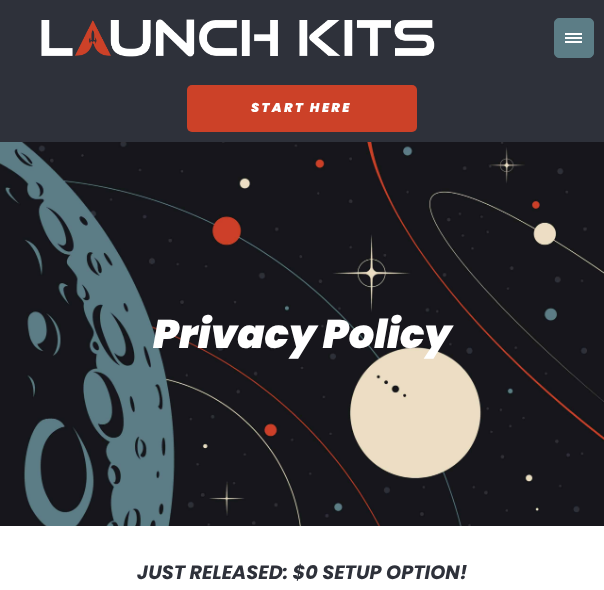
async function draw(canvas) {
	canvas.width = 604;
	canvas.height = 590;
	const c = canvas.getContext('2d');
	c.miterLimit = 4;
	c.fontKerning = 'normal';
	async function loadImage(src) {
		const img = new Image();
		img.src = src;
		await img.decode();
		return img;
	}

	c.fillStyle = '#fff';
	c.fillRect(0, 0, 604, 590);
	c.fillStyle = '#2e313a';
	c.fillRect(0, 0, 604, 142);
	c.drawImage(await loadImage('img1.png'), 41, 19, 394, 38);
	c.fillStyle = '#5c7d86';
	c.beginPath();
	c.roundRect(554.5, 18.5, 39, 39, 4.5);
	c.fill();
	c.strokeStyle = '#5c7d86';
	c.stroke();
	for (const [x, y, w, h, color] of [
		[565, 33, 17, 2, '#fff'],
		[565, 37, 17, 2, '#fff'],
		[565, 41, 17, 2, '#fff'],
	]) {
		c.fillStyle = color;
		c.fillRect(x, y, w, h);
	}
	c.fillStyle = '#cc4128';
	c.beginPath();
	c.roundRect(187, 85, 230, 47, 5);
	c.fill();
	c.letterSpacing = '2.4px';
	c.font = 'italic 900 12.75px Poppins';
	c.fillStyle = '#fff';
	c.fillText('START HERE', 251, 112);
	c.drawImage(await loadImage('img2.png'), 0, 142, 604, 384);
	c.letterSpacing = '0px';
	c.font = 'italic 900 40px Poppins';
	c.fillText('Privacy Policy', 153, 348);
	c.font = 'italic bold 19.25px Poppins';
	c.fillStyle = '#2e313a';
	c.fillText('JUST RELEASED: $0 SETUP OPTION!', 137, 579);
}

draw(document.querySelector('canvas'));
